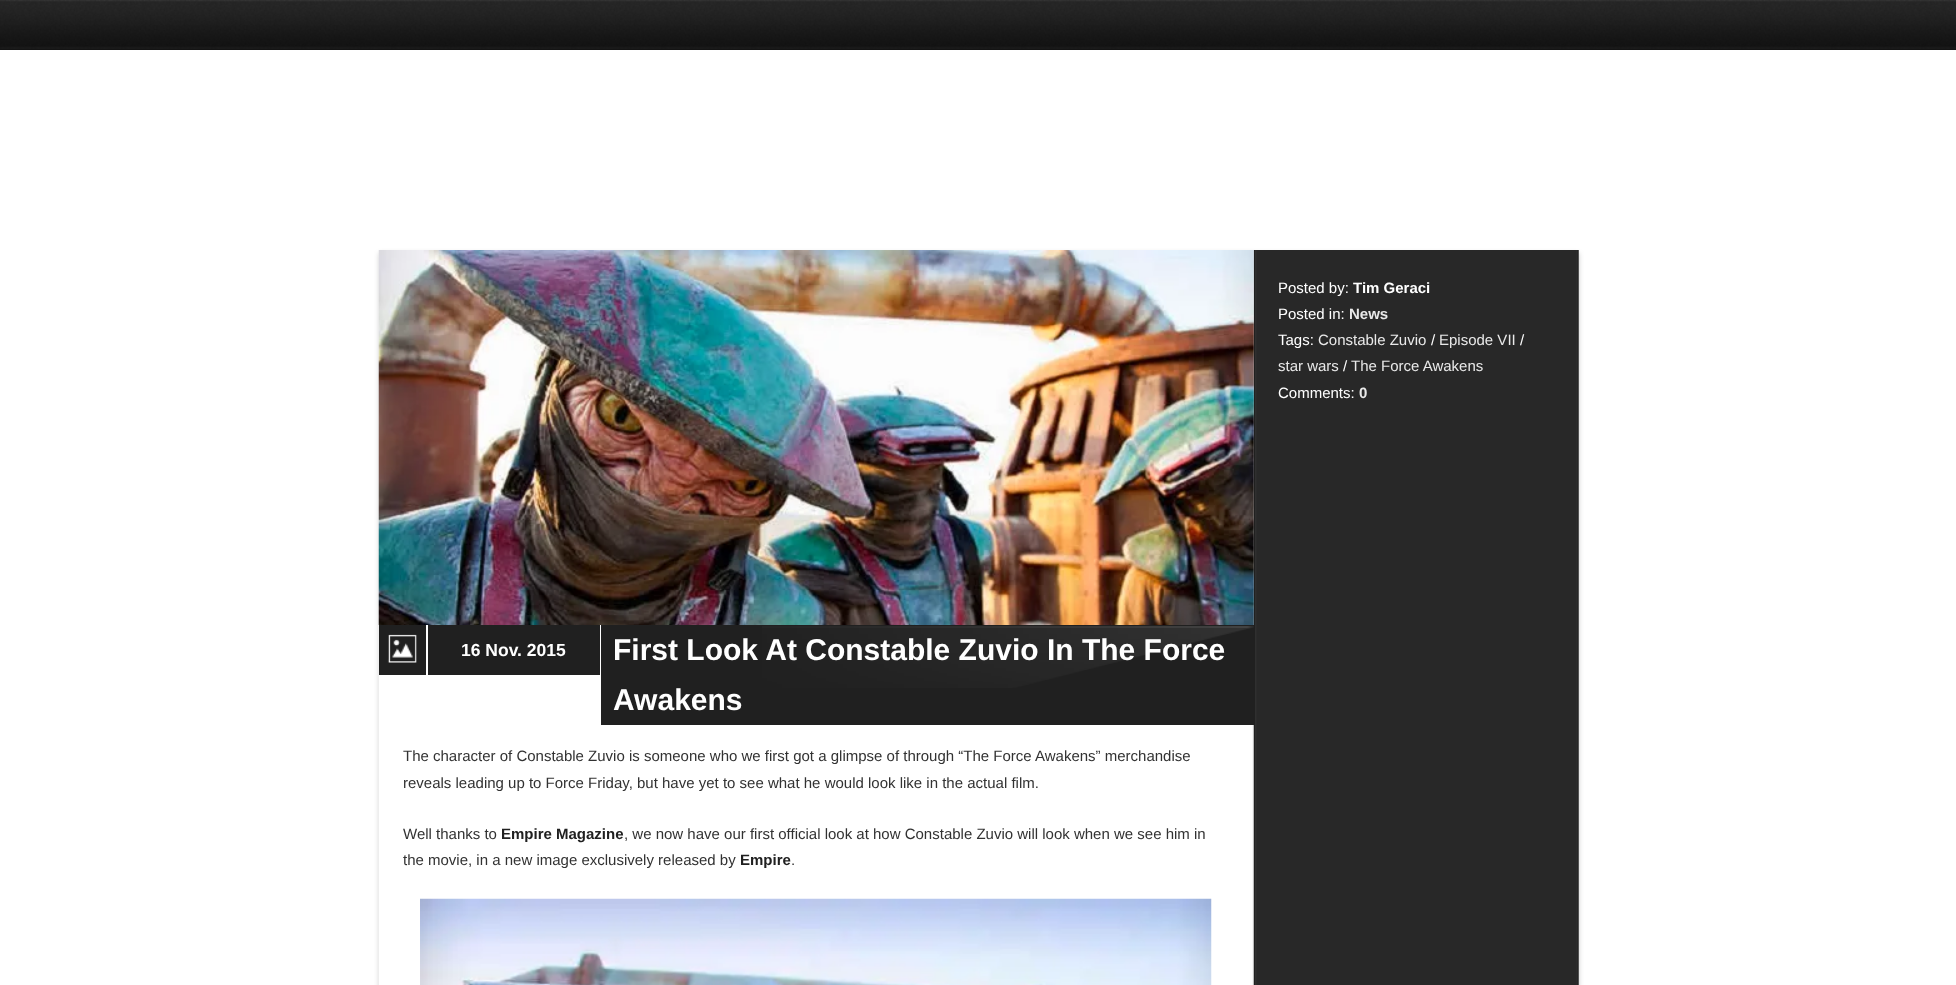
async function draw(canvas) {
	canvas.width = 1956;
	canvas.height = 985;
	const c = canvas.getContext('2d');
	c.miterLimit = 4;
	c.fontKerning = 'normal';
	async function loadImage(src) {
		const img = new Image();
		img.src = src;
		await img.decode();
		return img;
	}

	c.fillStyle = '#fff';
	c.fillRect(0, 0, 1956, 985);
	c.drawImage(await loadImage('img1.png'), 0, 0, 1956, 50);
	c.save();
	c.beginPath();
	c.moveTo(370, 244);
	c.lineTo(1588, 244);
	c.lineTo(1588, 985);
	c.lineTo(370, 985);
	c.closePath();
	c.moveTo(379, 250);
	c.lineTo(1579, 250);
	c.lineTo(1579, 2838);
	c.lineTo(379, 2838);
	c.closePath();
	c.clip('evenodd');
	c.fillStyle = '#00000033';
	c.filter = 'blur(2.5px)';
	c.beginPath();
	c.rect(379, 253, 1200, 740);
	c.fill();
	c.filter = 'none';
	c.restore();
	c.drawImage(await loadImage('img2.png'), 378, 250, 1201, 735);
	c.font = '15px Liberation Sans';
	c.fillText('Posted by:', 1278, 293);
	c.font = 'bold 15px Liberation Sans';
	c.fillText('Tim Geraci', 1353, 293);
	c.font = '15px Liberation Sans';
	c.fillText('Posted in:', 1278, 319);
	c.font = 'bold 15px Liberation Sans';
	c.fillStyle = '#e9e9e9';
	c.fillText('News', 1349, 319);
	c.font = '15px Liberation Sans';
	c.fillStyle = '#fff';
	c.fillText('Tags:', 1278, 345);
	c.fillStyle = '#e9e9e9';
	c.fillText('Constable Zuvio', 1318, 345);
	c.fillStyle = '#fff';
	c.fillText('/', 1431, 345);
	c.fillStyle = '#e9e9e9';
	c.fillText('Episode VII', 1439, 345);
	c.fillStyle = '#fff';
	c.fillText('/', 1520, 345);
	c.fillStyle = '#e9e9e9';
	c.fillText('star wars', 1278, 371);
	c.fillStyle = '#fff';
	c.fillText('/', 1343, 371);
	c.fillStyle = '#e9e9e9';
	c.fillText('The Force Awakens', 1351, 371);
	c.fillStyle = '#fff';
	c.fillText('Comments:', 1278, 398);
	c.font = 'bold 15px Liberation Sans';
	c.fillStyle = '#e9e9e9';
	c.fillText('0', 1359, 398);
	c.drawImage(await loadImage('img3.png'), 378, 250, 876, 375);
	c.fillStyle = '#202020';
	c.fillRect(379, 625, 47, 50);
	c.drawImage(await loadImage('img4.png'), 387, 634, 30, 29);
	c.fillRect(428, 625, 172, 50);
	c.font = 'bold 17.5px Liberation Sans';
	c.fillStyle = '#fff';
	c.fillText('16 Nov. 2015', 461, 656);
	c.fillStyle = '#202020';
	c.fillRect(601, 625, 653, 100);
	c.drawImage(await loadImage('img5.png'), 762, 626, 492, 62);
	c.font = 'bold 30px Liberation Sans';
	c.fillStyle = '#fff';
	c.fillText('First Look At Constable Zuvio In The Force', 613, 660);
	c.fillText('Awakens', 613, 710);
	c.font = '15px Liberation Sans';
	c.fillStyle = '#323232';
	for (const [text, x, y] of [
		['The character of Constable Zuvio is someone who we first got a glimpse of through “The Force Awakens” merchandise', 403, 761],
		['reveals leading up to Force Friday, but have yet to see what he would look like in the actual film.', 403, 788],
		['Well thanks to', 403, 839],
	]) {
		c.fillText(text, x, y);
	}
	c.font = 'bold 15px Liberation Sans';
	c.fillStyle = '#202020';
	c.fillText('Empire Magazine', 501, 839);
	c.font = '15px Liberation Sans';
	c.fillStyle = '#323232';
	c.fillText(', we now have our first official look at how Constable Zuvio will look when we see him in', 624, 839);
	c.fillText('the movie, in a new image exclusively released by', 403, 865);
	c.font = 'bold 15px Liberation Sans';
	c.fillStyle = '#202020';
	c.fillText('Empire', 740, 865);
	c.font = '15px Liberation Sans';
	c.fillStyle = '#323232';
	c.fillText('.', 791, 865);
	c.drawImage(await loadImage('img6.png'), 420, 898, 792, 87);
}

draw(document.querySelector('canvas'));
